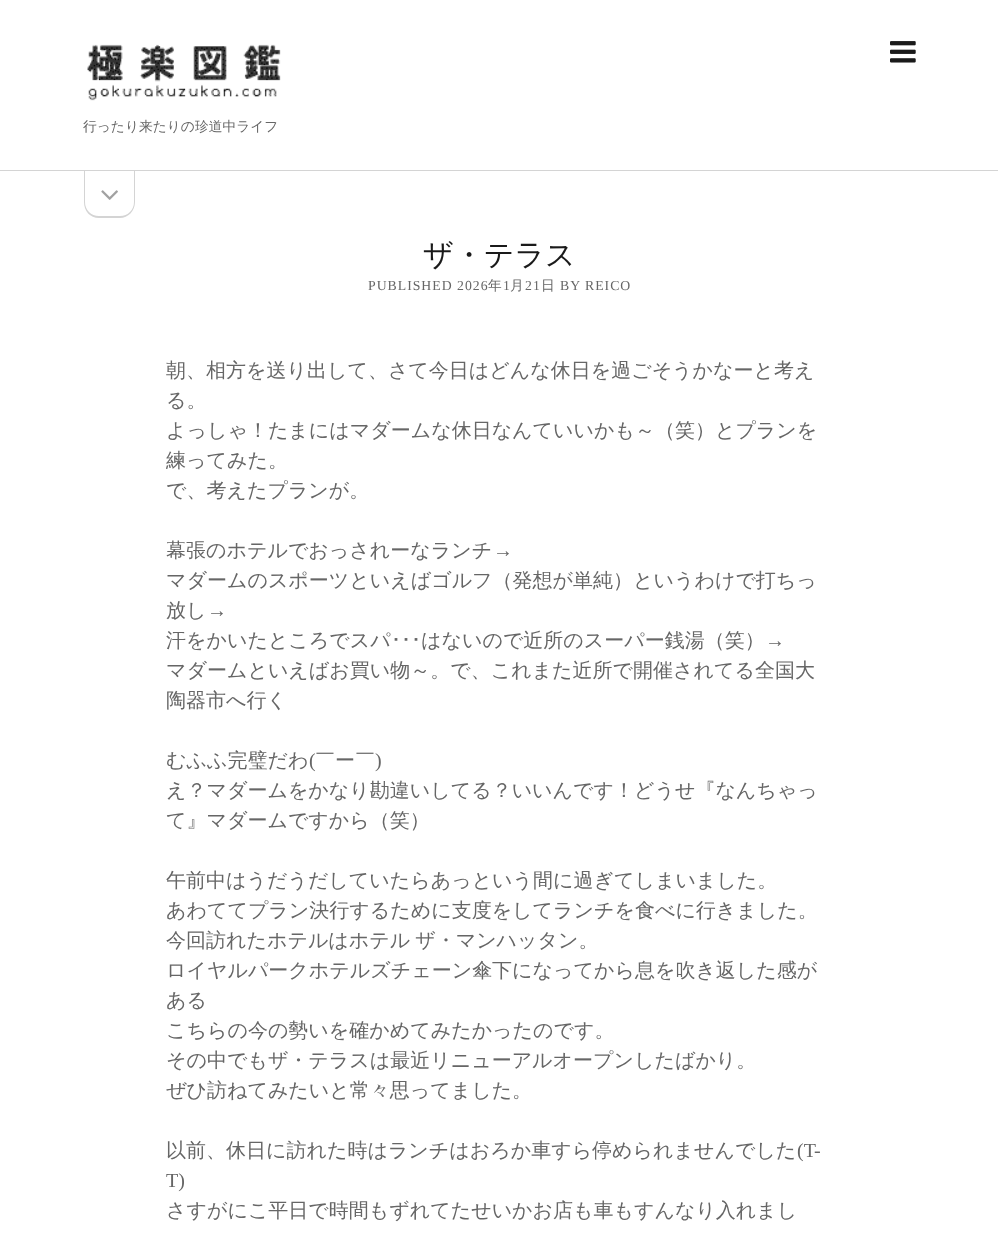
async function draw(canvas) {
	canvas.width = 998;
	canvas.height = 1240;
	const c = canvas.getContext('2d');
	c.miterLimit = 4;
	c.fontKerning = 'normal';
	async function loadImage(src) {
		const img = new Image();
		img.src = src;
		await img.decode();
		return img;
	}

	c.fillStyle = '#fff';
	c.fillRect(0, 0, 998, 1240);
	c.fillStyle = '#d4d4d4';
	c.fillRect(0, 170, 998, 1);
	c.drawImage(await loadImage('img1.png'), 890, 41, 26, 22);
	c.drawImage(await loadImage('img2.png'), 87, 44, 194, 57);
	c.font = '500 13.75px WenQuanYi Zen Hei';
	c.fillStyle = '#666';
	c.fillText('行ったり来たりの珍道中ライフ', 83, 131);
	c.fillStyle = '#d4d4d4';
	c.beginPath();
	c.moveTo(84, 171);
	c.lineTo(135, 171);
	c.lineTo(135, 202);
	c.bezierCurveTo(135, 211, 128, 218, 120, 218);
	c.lineTo(99, 218);
	c.bezierCurveTo(90, 218, 84, 211, 84, 202);
	c.closePath();
	c.moveTo(85, 171);
	c.lineTo(134, 171);
	c.lineTo(134, 202);
	c.bezierCurveTo(134, 210, 128, 216, 120, 216);
	c.lineTo(99, 216);
	c.bezierCurveTo(91, 216, 85, 210, 85, 202);
	c.closePath();
	c.fill('evenodd');
	c.drawImage(await loadImage('img3.png'), 101, 190, 17, 10);
	c.font = '500 30px WenQuanYi Zen Hei';
	c.fillStyle = '#1a1a1a';
	c.fillText('ザ・テラス', 423, 265);
	c.letterSpacing = '1px';
	c.font = '13.75px Liberation Serif';
	c.fillStyle = '#666';
	c.fillText('PUBLISHED 2026', 368, 290);
	c.font = '500 13.75px WenQuanYi Zen Hei';
	c.fillText('年', 488, 290);
	c.font = '13.75px Liberation Serif';
	c.fillText('1', 503, 290);
	c.font = '500 13.75px WenQuanYi Zen Hei';
	c.fillText('月', 510, 290);
	c.font = '13.75px Liberation Serif';
	c.fillText('21', 525, 290);
	c.font = '500 13.75px WenQuanYi Zen Hei';
	c.fillText('日', 541, 290);
	c.font = '13.75px Liberation Serif';
	c.fillText('BY REICO', 560, 290);
	c.letterSpacing = '0px';
	c.font = '500 20px WenQuanYi Zen Hei';
	for (const [text, x, y] of [
		['朝、相方を送り出して、さて今日はどんな休日を過ごそうかなーと考え', 166, 377],
		['る。', 166, 407],
		['よっしゃ！たまにはマダームな休日なんていいかも～（笑）とプランを', 166, 437],
		['練ってみた。', 166, 467],
		['で、考えたプランが。', 166, 497],
		['幕張のホテルでおっされーなランチ', 166, 557],
	]) {
		c.fillText(text, x, y);
	}
	c.font = '20px Liberation Serif';
	c.fillText('→', 493, 557);
	c.font = '500 20px WenQuanYi Zen Hei';
	c.fillText('マダームのスポーツといえばゴルフ（発想が単純）というわけで打ちっ', 166, 587);
	c.fillText('放し', 166, 617);
	c.font = '20px Liberation Serif';
	c.fillText('→', 207, 617);
	c.font = '500 20px WenQuanYi Zen Hei';
	c.fillText('汗をかいたところでスパ', 166, 647);
	c.font = '20px IPAPGothic';
	c.fillText('･･･', 391, 647);
	c.font = '500 20px WenQuanYi Zen Hei';
	c.fillText('はないので近所のスーパー銭湯（笑）', 421, 647);
	c.font = '20px Liberation Serif';
	c.fillText('→', 765, 647);
	c.font = '500 20px WenQuanYi Zen Hei';
	for (const [text, x, y] of [
		['マダームといえばお買い物～。で、これまた近所で開催されてる全国大', 166, 677],
		['陶器市へ行く', 166, 707],
		['むふふ完璧だわ', 166, 767],
	]) {
		c.fillText(text, x, y);
	}
	c.font = '20px Liberation Serif';
	c.fillText('(', 309, 767);
	c.font = '500 20px WenQuanYi Zen Hei';
	c.fillText('￣ー￣', 315, 767);
	c.font = '20px Liberation Serif';
	c.fillText(')', 375, 767);
	c.font = '500 20px WenQuanYi Zen Hei';
	for (const [text, x, y] of [
		['え？マダームをかなり勘違いしてる？いいんです！どうせ『なんちゃっ', 166, 797],
		['て』マダームですから（笑）', 166, 827],
		['午前中はうだうだしていたらあっという間に過ぎてしまいました。', 166, 887],
		['あわててプラン決行するために支度をしてランチを食べに行きました。', 166, 917],
	]) {
		c.fillText(text, x, y);
	}
	c.wordSpacing = '-1px';
	c.fillText('今回訪れたホテルはホテル ザ・マンハッタン。', 166, 947);
	c.wordSpacing = '0px';
	for (const [text, x, y] of [
		['ロイヤルパークホテルズチェーン傘下になってから息を吹き返した感が', 166, 977],
		['ある', 166, 1007],
		['こちらの今の勢いを確かめてみたかったのです。', 166, 1037],
		['その中でもザ・テラスは最近リニューアルオープンしたばかり。', 166, 1067],
		['ぜひ訪ねてみたいと常々思ってました。', 166, 1097],
		['以前、休日に訪れた時はランチはおろか車すら停められませんでした', 166, 1157],
	]) {
		c.fillText(text, x, y);
	}
	c.font = '20px Liberation Serif';
	c.fillText('(T-', 797, 1157);
	c.fillText('T)', 166, 1187);
	c.font = '500 20px WenQuanYi Zen Hei';
	c.fillText('さすがにこ平日で時間もずれてたせいかお店も車もすんなり入れまし', 166, 1217);
}

draw(document.querySelector('canvas'));
